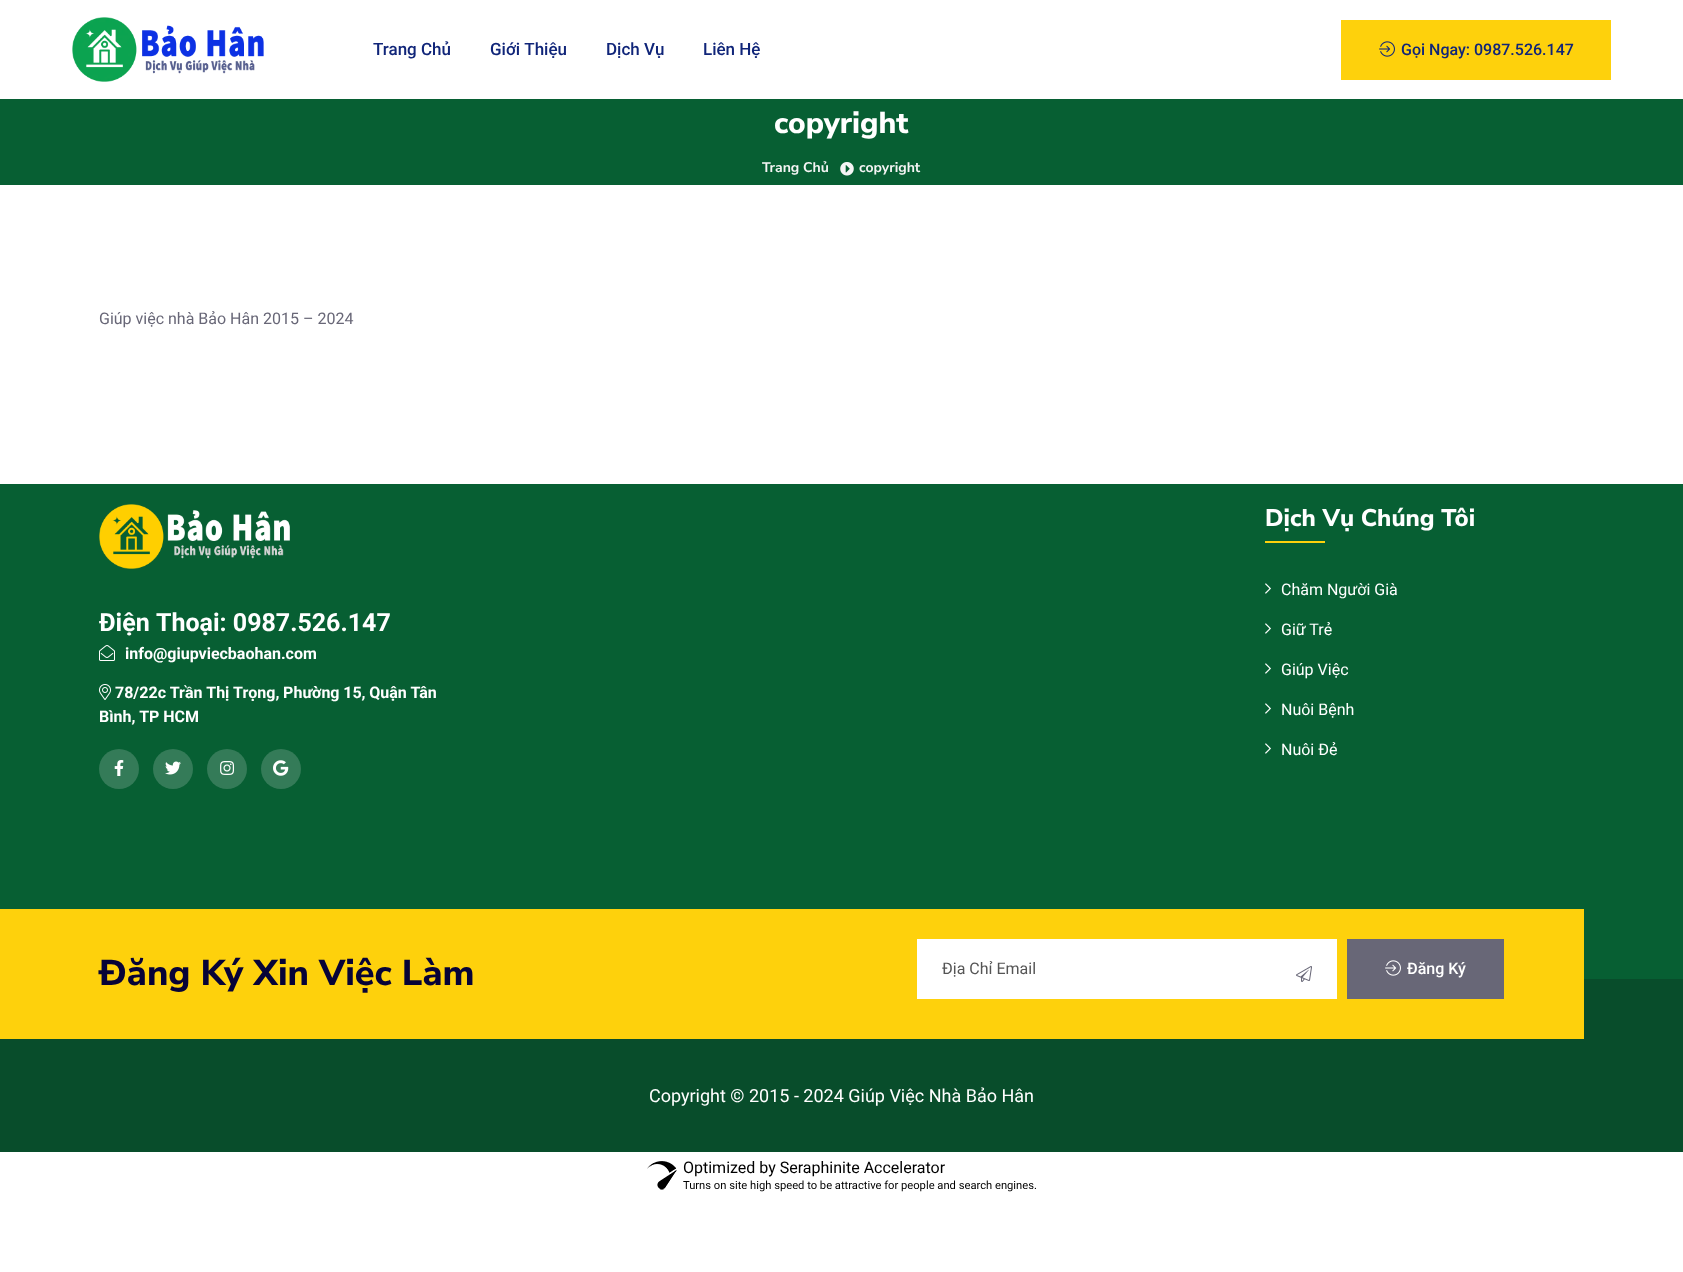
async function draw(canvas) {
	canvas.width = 1683;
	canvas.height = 1272;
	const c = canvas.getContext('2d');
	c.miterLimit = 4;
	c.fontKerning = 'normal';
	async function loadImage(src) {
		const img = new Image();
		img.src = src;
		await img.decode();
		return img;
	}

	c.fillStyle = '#fff';
	c.fillRect(0, 0, 1683, 1272);
	c.drawImage(await loadImage('img1.png'), 72, 17, 192, 65);
	c.font = '500 17px Roboto';
	c.fillStyle = '#102579';
	for (const [text, x, y] of [
		['Trang Chủ', 373, 55],
		['Giới Thiệu', 490, 55],
		['Dịch Vụ', 606, 55],
		['Liên Hệ', 703, 55],
	]) {
		c.fillText(text, x, y);
	}
	c.fillStyle = '#fed10c';
	c.fillRect(1341, 20, 270, 60);
	c.drawImage(await loadImage('img2.png'), 1379, 41, 16, 16);
	c.font = '500 16px Roboto';
	c.fillStyle = '#102579';
	c.fillText('Gọi Ngay: 0987.526.147', 1401, 55);
	c.fillStyle = '#075f33';
	c.fillRect(0, 99, 1683, 86);
	c.font = '800 30px Nunito Sans';
	c.fillStyle = '#fff';
	c.fillText('copyright', 774, 133);
	c.font = 'bold 14px Nunito Sans';
	c.fillStyle = '#f5f5f5';
	c.fillText('Trang Chủ', 762, 172);
	c.drawImage(await loadImage('img3.png'), 840, 162, 14, 14);
	c.fillText('copyright', 859, 172);
	c.font = '16px Roboto';
	c.fillStyle = '#686777';
	c.fillText('Giúp việc nhà Bảo Hân 2015 – 2024', 99, 324);
	c.fillStyle = '#075f33';
	c.fillRect(0, 484, 1683, 495);
	c.drawImage(await loadImage('img4.png'), 99, 504, 191, 65);
	c.font = 'bold 25px Roboto';
	c.fillStyle = '#fff';
	c.fillText('Điện Thoại: 0987.526.147', 99, 631);
	c.drawImage(await loadImage('img5.png'), 99, 645, 16, 16);
	c.font = 'bold 16px Roboto';
	c.fillText('info@giupviecbaohan.com', 125, 659);
	c.drawImage(await loadImage('img6.png'), 99, 684, 12, 16);
	c.wordSpacing = '-0.25px';
	c.fillText('78/22c Trần Thị Trọng, Phường 15, Quận Tân', 115, 698);
	c.fillText('Bình, TP HCM', 99, 722);
	c.fillStyle = '#347b58';
	c.beginPath();
	c.arc(119, 769, 20, 0, 2 * Math.PI);
	c.fill();
	c.drawImage(await loadImage('img7.png'), 114, 760, 10, 16);
	c.beginPath();
	c.arc(173, 769, 20, 0, 2 * Math.PI);
	c.fill();
	c.drawImage(await loadImage('img8.png'), 165, 761, 16, 14);
	c.beginPath();
	c.arc(227, 769, 20, 0, 2 * Math.PI);
	c.fill();
	c.drawImage(await loadImage('img9.png'), 220, 761, 15, 14);
	c.beginPath();
	c.arc(281, 769, 20, 0, 2 * Math.PI);
	c.fill();
	c.drawImage(await loadImage('img10.png'), 273, 760, 16, 16);
	c.wordSpacing = '0px';
	c.font = '800 24px Nunito Sans';
	c.fillStyle = '#fff';
	c.fillText('Dịch Vụ Chúng Tôi', 1265, 526);
	c.fillStyle = '#fed10c';
	c.fillRect(1265, 541, 60, 2);
	c.drawImage(await loadImage('img11.png'), 1265, 583, 6, 11);
	c.font = '16px Roboto';
	c.fillStyle = '#fff';
	c.fillText('Chăm Người Già', 1281, 595);
	c.drawImage(await loadImage('img11.png'), 1265, 623, 6, 11);
	c.fillText('Giữ Trẻ', 1281, 635);
	c.drawImage(await loadImage('img11.png'), 1265, 663, 6, 11);
	c.fillText('Giúp Việc', 1281, 675);
	c.drawImage(await loadImage('img11.png'), 1265, 703, 6, 11);
	c.fillText('Nuôi Bệnh', 1281, 715);
	c.drawImage(await loadImage('img11.png'), 1265, 743, 6, 11);
	c.fillText('Nuôi Đẻ', 1281, 755);
	c.fillStyle = '#fed10c';
	c.fillRect(0, 909, 1584, 130);
	c.font = '800 36px Nunito Sans';
	c.fillStyle = '#070337';
	c.fillText('Đăng Ký Xin Việc Làm', 99, 985);
	c.fillStyle = '#fff';
	c.fillRect(917, 939, 420, 60);
	c.font = '16px Roboto';
	c.fillStyle = '#555';
	c.fillText('Địa Chỉ Email', 942, 974);
	c.drawImage(await loadImage('img12.png'), 1296, 966, 16, 16);
	c.fillStyle = '#686777';
	c.fillRect(1347, 939, 157, 60);
	c.drawImage(await loadImage('img13.png'), 1385, 960, 16, 16);
	c.font = '500 16px Roboto';
	c.fillStyle = '#fff';
	c.fillText('Đăng Ký', 1407, 974);
	c.fillStyle = '#084d2b';
	c.fillRect(1584, 979, 99, 60);
	c.fillRect(0, 1039, 1683, 113);
	c.font = '18px Roboto';
	c.fillStyle = '#fff';
	c.fillText('Copyright © 2015 - 2024 Giúp Việc Nhà Bảo Hân', 649, 1102);
	c.drawImage(await loadImage('img14.png'), 647, 1161, 30, 29);
	c.font = '16px Roboto';
	c.fillStyle = '#000';
	c.fillText('Optimized by Seraphinite Accelerator', 683, 1173);
	c.font = '11.2px Roboto';
	c.fillText('Turns on site high speed to be attractive for people and search engines.', 683, 1189);
}

draw(document.querySelector('canvas'));
